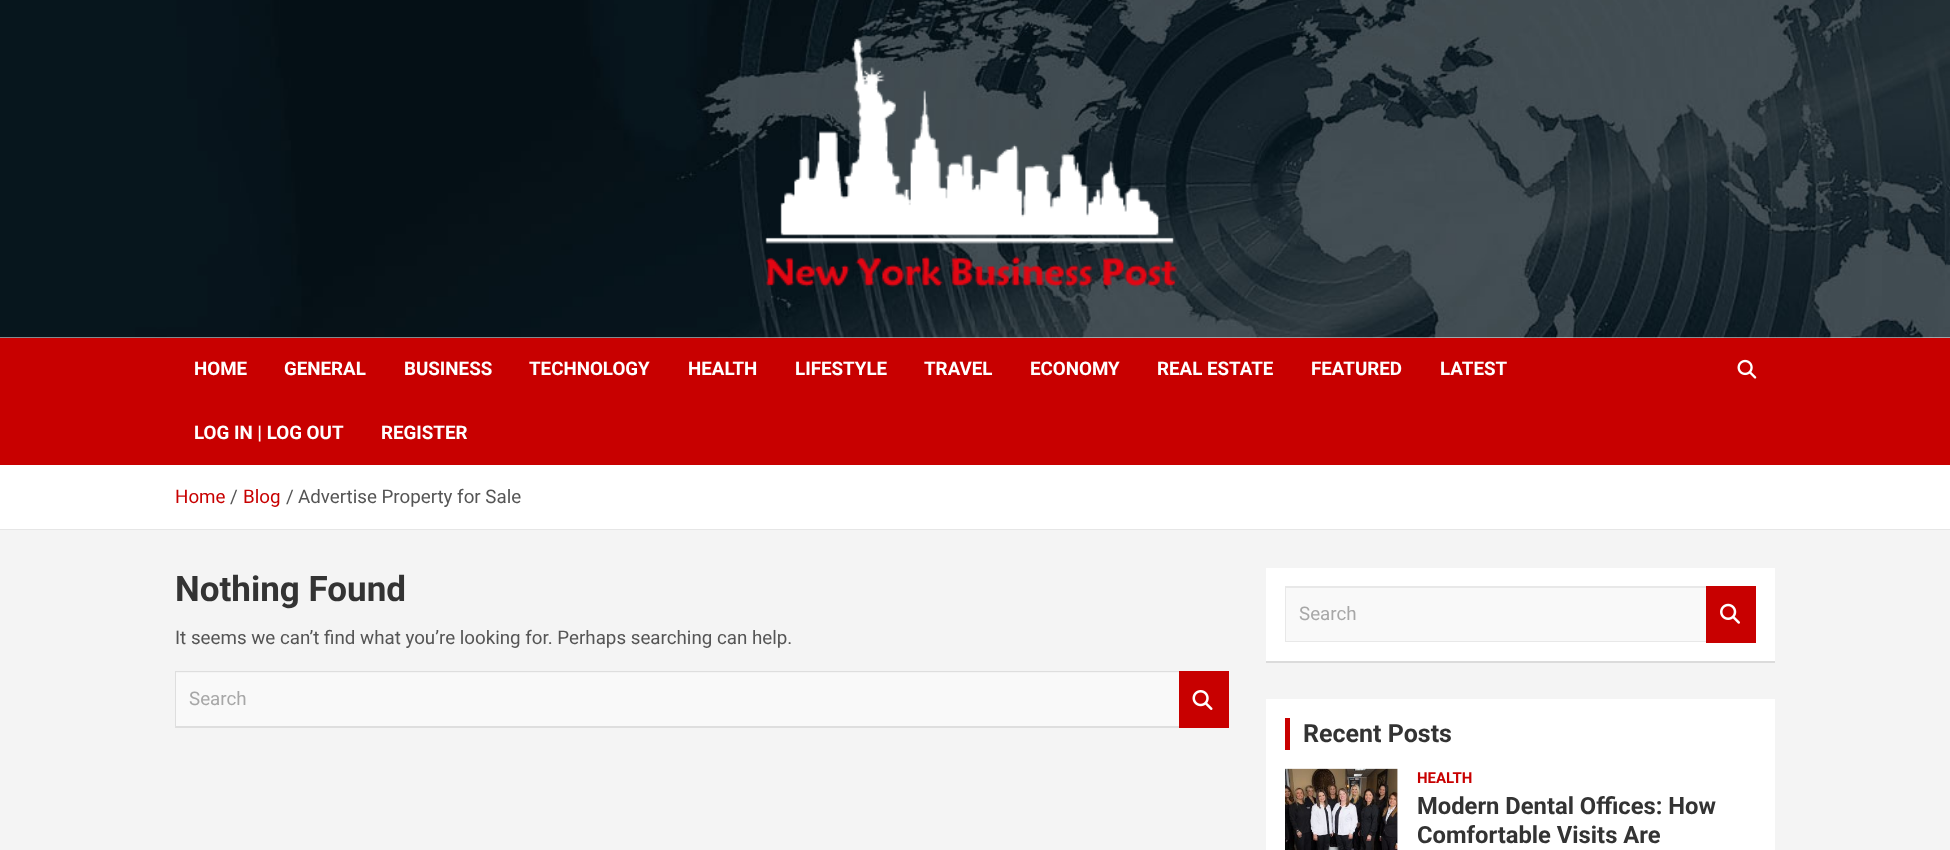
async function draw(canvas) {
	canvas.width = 1950;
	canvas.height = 850;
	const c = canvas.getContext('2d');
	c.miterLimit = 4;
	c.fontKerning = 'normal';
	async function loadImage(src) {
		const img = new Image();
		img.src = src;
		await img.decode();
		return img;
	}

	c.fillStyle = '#f4f4f4';
	c.fillRect(0, 0, 1950, 850);
	c.fillStyle = '#fff';
	c.fillRect(0, 337, 1950, 1);
	c.drawImage(await loadImage('img1.png'), 0, 0, 1950, 338);
	c.drawImage(await loadImage('img2.png'), 765, 38, 412, 249);
	c.fillStyle = '#c80000';
	c.fillRect(0, 338, 1950, 127);
	c.font = 'bold 18.75px Roboto';
	c.fillStyle = '#fff';
	for (const [text, x, y] of [
		['HOME', 194, 375],
		['GENERAL', 284, 375],
		['BUSINESS', 404, 375],
		['TECHNOLOGY', 529, 375],
		['HEALTH', 688, 375],
		['LIFESTYLE', 795, 375],
		['TRAVEL', 924, 375],
		['ECONOMY', 1030, 375],
		['REAL ESTATE', 1157, 375],
		['FEATURED', 1311, 375],
		['LATEST', 1440, 375],
		['LOG IN | LOG OUT', 194, 439],
		['REGISTER', 381, 439],
	]) {
		c.fillText(text, x, y);
	}
	c.drawImage(await loadImage('img3.png'), 1737, 359, 20, 20);
	c.fillRect(0, 465, 1950, 64);
	c.fillStyle = '#e6e6e6';
	c.fillRect(0, 529, 1950, 1);
	c.font = '18.75px Roboto';
	c.fillStyle = '#c80000';
	c.fillText('Home', 175, 503);
	c.fillStyle = '#555';
	c.fillText('/', 230, 503);
	c.fillStyle = '#c80000';
	c.fillText('Blog', 243, 503);
	c.fillStyle = '#555';
	c.fillText('/', 286, 503);
	c.fillText('Advertise Property for Sale', 298, 503);
	c.font = 'bold 35px Roboto';
	c.fillStyle = '#333';
	c.fillText('Nothing Found', 175, 601);
	c.font = '18.75px Roboto';
	c.fillStyle = '#555';
	c.fillText('It seems we can’t find what you’re looking for. Perhaps searching can help.', 175, 644);
	c.fillStyle = '#f9f9f9';
	c.fillRect(176, 673, 1003, 53);
	c.fillStyle = '#dedede';
	c.beginPath();
	c.moveTo(175, 671);
	c.lineTo(1179, 671);
	c.lineTo(1179, 672);
	c.lineTo(176, 672);
	c.closePath();
	c.fill();
	c.beginPath();
	c.moveTo(1179, 728);
	c.lineTo(175, 728);
	c.lineTo(176, 726);
	c.lineTo(1179, 726);
	c.closePath();
	c.fill();
	c.fillStyle = '#00000017';
	c.beginPath();
	c.moveTo(175, 728);
	c.lineTo(175, 671);
	c.lineTo(176, 672);
	c.lineTo(176, 726);
	c.closePath();
	c.fill();
	c.fillStyle = '#a7a7a7';
	c.fillText('Search', 189, 705);
	c.fillStyle = '#c80000';
	c.fillRect(1179, 671, 50, 57);
	c.drawImage(await loadImage('img4.png'), 1192, 690, 21, 20);
	c.fillStyle = '#0000001a';
	c.filter = 'blur(0.5px)';
	c.beginPath();
	c.rect(1266, 569, 509, 94);
	c.fill();
	c.filter = 'none';
	c.fillStyle = '#fff';
	c.fillRect(1266, 568, 509, 93);
	c.fillStyle = '#f9f9f9';
	c.fillRect(1286, 588, 420, 53);
	c.fillStyle = '#e8e8e8';
	c.beginPath();
	c.moveTo(1285, 586);
	c.lineTo(1706, 586);
	c.lineTo(1706, 588);
	c.lineTo(1286, 588);
	c.closePath();
	c.fill();
	c.beginPath();
	c.moveTo(1706, 642);
	c.lineTo(1285, 642);
	c.lineTo(1286, 641);
	c.lineTo(1706, 641);
	c.closePath();
	c.fill();
	c.fillStyle = '#00000017';
	c.beginPath();
	c.moveTo(1285, 642);
	c.lineTo(1285, 586);
	c.lineTo(1286, 588);
	c.lineTo(1286, 641);
	c.closePath();
	c.fill();
	c.fillStyle = '#a7a7a7';
	c.fillText('Search', 1299, 620);
	c.fillStyle = '#c80000';
	c.fillRect(1706, 586, 50, 57);
	c.drawImage(await loadImage('img5.png'), 1720, 603, 20, 21);
	c.fillStyle = '#fff';
	c.fillRect(1266, 699, 509, 151);
	c.fillStyle = '#c80000';
	c.fillRect(1285, 718, 5, 32);
	c.font = 'bold 25px Roboto';
	c.fillStyle = '#333';
	c.fillText('Recent Posts', 1303, 742);
	c.drawImage(await loadImage('img6.png'), 1285, 768, 113, 82);
	c.font = 'bold 15px Roboto';
	c.fillStyle = '#c80000';
	c.fillText('HEALTH', 1417, 783);
	c.font = 'bold 23.75px Roboto';
	c.fillStyle = '#333';
	c.fillText('Modern Dental Offices: How', 1417, 814);
	c.fillText('Comfortable Visits Are', 1417, 843);
}

draw(document.querySelector('canvas'));
